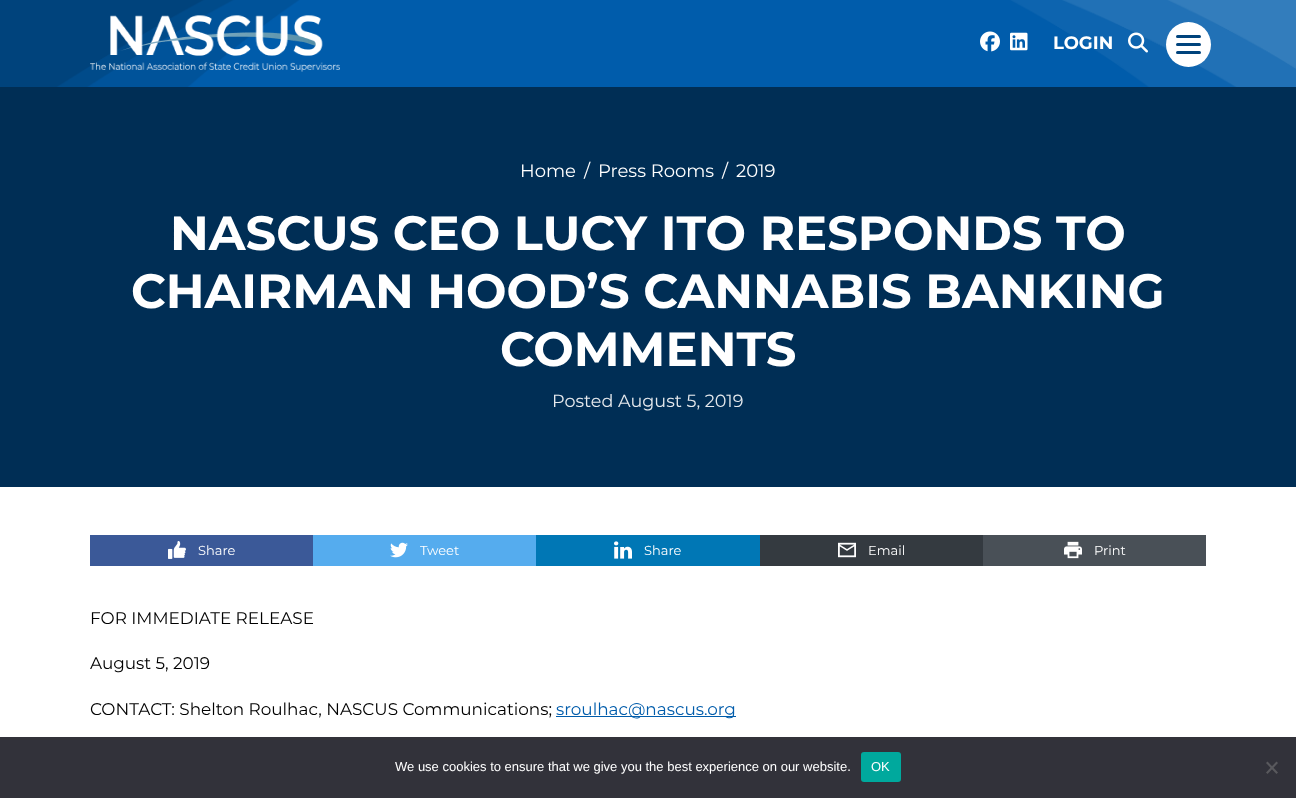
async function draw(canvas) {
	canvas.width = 1296;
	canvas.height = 798;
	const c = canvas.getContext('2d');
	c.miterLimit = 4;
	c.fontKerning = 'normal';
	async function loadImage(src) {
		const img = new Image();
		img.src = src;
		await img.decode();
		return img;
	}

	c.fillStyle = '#fff';
	c.fillRect(0, 0, 1296, 798);
	c.drawImage(await loadImage('img1.png'), 0, 0, 1296, 87);
	c.drawImage(await loadImage('img2.png'), 90, 15, 250, 57);
	c.drawImage(await loadImage('img3.png'), 980, 31, 20, 21);
	c.drawImage(await loadImage('img4.png'), 1010, 32, 18, 19);
	c.font = 'bold 18px Montserrat';
	c.fillText('LOGIN', 1053, 49);
	c.drawImage(await loadImage('img5.png'), 1128, 32, 20, 21);
	c.beginPath();
	c.arc(1188.5, 44.5, 22.5, 0, 2 * Math.PI);
	c.fill();
	c.fillStyle = '#00437c';
	c.beginPath();
	c.roundRect(1176, 43, 25, 3, 1.5);
	c.fill();
	c.beginPath();
	c.roundRect(1176, 35, 25, 3, 1.5);
	c.fill();
	c.beginPath();
	c.roundRect(1176, 51, 25, 3, 1.5);
	c.fill();
	c.fillStyle = '#002e55';
	c.fillRect(0, 87, 1296, 400);
	c.font = '18px Montserrat';
	c.fillStyle = '#fff';
	for (const [text, x, y] of [
		['Home', 520, 177],
		['/', 584, 177],
		['Press Rooms', 598, 177],
		['/', 722, 177],
		['2019', 736, 177],
	]) {
		c.fillText(text, x, y);
	}
	c.font = 'bold 48px Montserrat';
	for (const [text, x, y] of [
		['NASCUS CEO LUCY ITO RESPONDS TO', 170, 250],
		['CHAIRMAN HOOD’S CANNABIS BANKING', 131, 308],
		['COMMENTS', 500, 366],
	]) {
		c.fillText(text, x, y);
	}
	c.font = '17.6px Montserrat';
	c.fillStyle = '#e6eaee';
	c.fillText('Posted August 5, 2019', 552, 407);
	c.fillStyle = '#3b5998';
	c.fillRect(90, 535, 223, 31);
	c.drawImage(await loadImage('img6.png'), 168, 541, 18, 18);
	c.font = '13px Montserrat';
	c.fillStyle = '#fff';
	c.fillText('Share', 198, 555);
	c.fillStyle = '#55acee';
	c.fillRect(313, 535, 223, 31);
	c.drawImage(await loadImage('img7.png'), 390, 542, 18, 16);
	c.fillStyle = '#fff';
	c.fillText('Tweet', 420, 555);
	c.fillStyle = '#0077b5';
	c.fillRect(536, 535, 224, 31);
	c.drawImage(await loadImage('img8.png'), 614, 541, 18, 18);
	c.fillStyle = '#fff';
	c.fillText('Share', 644, 555);
	c.fillStyle = '#343a40';
	c.fillRect(760, 535, 223, 31);
	c.drawImage(await loadImage('img9.png'), 838, 542, 18, 16);
	c.fillStyle = '#fff';
	c.fillText('Email', 868, 555);
	c.fillStyle = '#495057';
	c.fillRect(983, 535, 223, 31);
	c.drawImage(await loadImage('img10.png'), 1064, 541, 18, 18);
	c.fillStyle = '#fff';
	c.fillText('Print', 1094, 555);
	c.font = '16.85px Montserrat';
	c.fillStyle = '#000';
	for (const [text, x, y] of [
		['FOR IMMEDIATE RELEASE', 90, 624],
		['August 5, 2019', 90, 669],
		['CONTACT: Shelton Roulhac, NASCUS Communications;', 90, 715],
	]) {
		c.fillText(text, x, y);
	}
	c.fillStyle = '#005cab';
	c.fillRect(556, 716, 180, 1);
	c.fillText('sroulhac@nascus.org', 556, 715);
	c.fillStyle = '#32323a';
	c.fillRect(0, 737, 1296, 61);
	c.font = '13px Liberation Sans';
	c.fillStyle = '#fff';
	c.fillText('We use cookies to ensure that we give you the best experience on our website.', 395, 771);
	c.fillStyle = '#00a99d';
	c.beginPath();
	c.roundRect(861, 752, 40, 30, 3);
	c.fill();
	c.fillStyle = '#fff';
	c.fillText('OK', 871, 771);
	c.fillStyle = '#59595d';
	c.beginPath();
	c.moveTo(1276.5, 761.5);
	c.lineTo(1278, 763);
	c.lineTo(1267.5, 774);
	c.lineTo(1266, 772.5);
	c.closePath();
	c.fill();
	c.beginPath();
	c.moveTo(1266, 763);
	c.lineTo(1267.5, 761.5);
	c.lineTo(1278, 772.5);
	c.lineTo(1276.5, 774);
	c.closePath();
	c.fill();
}

draw(document.querySelector('canvas'));
